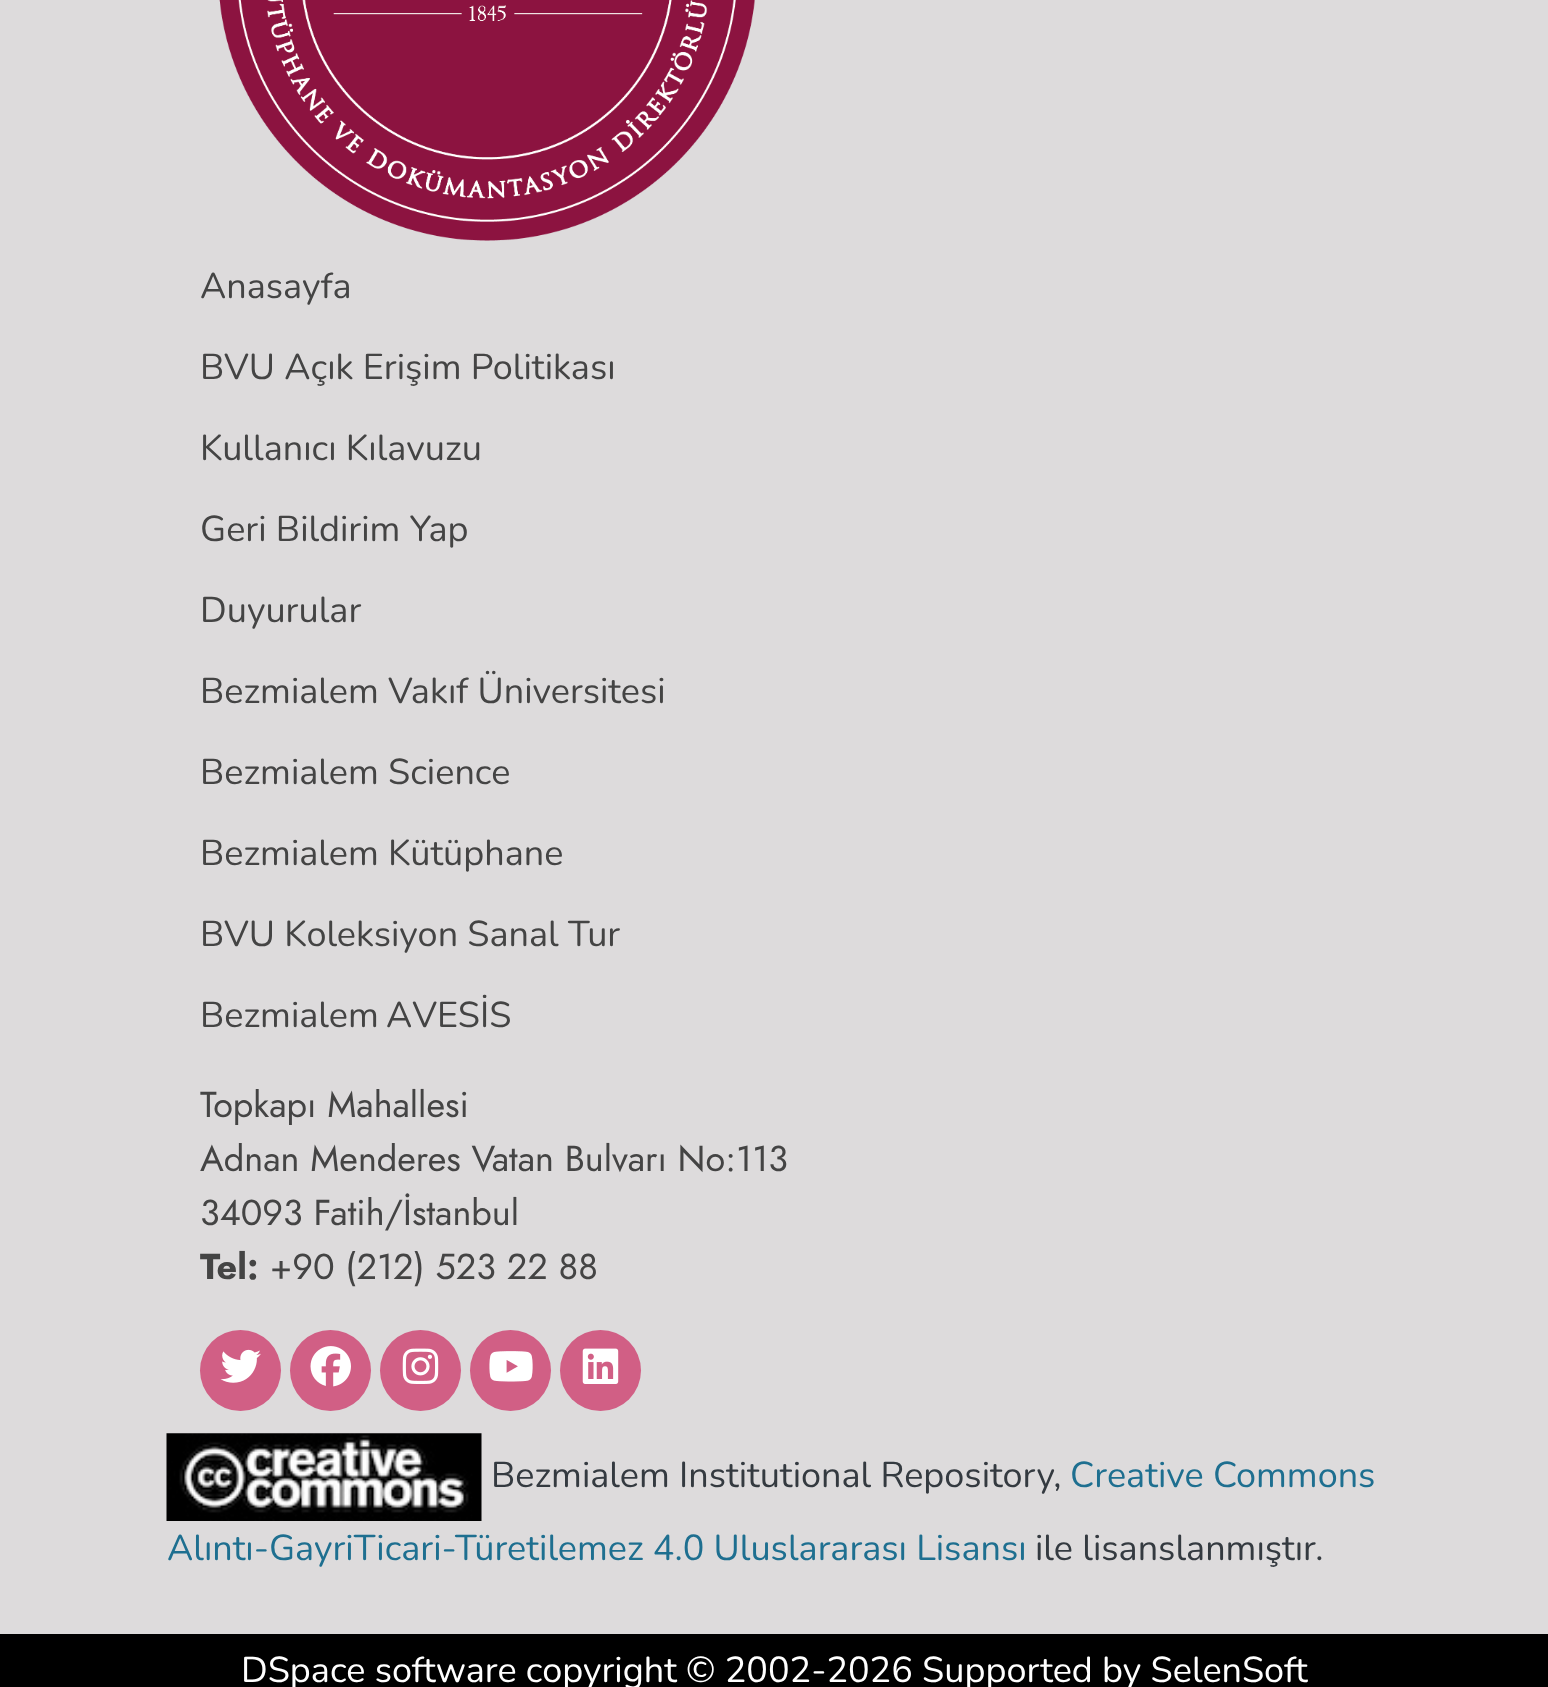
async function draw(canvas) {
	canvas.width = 1548;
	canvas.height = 1687;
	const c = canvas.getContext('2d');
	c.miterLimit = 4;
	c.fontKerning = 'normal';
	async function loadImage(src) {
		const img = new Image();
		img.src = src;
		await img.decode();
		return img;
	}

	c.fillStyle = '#000';
	c.fillRect(0, 0, 1548, 1687);
	c.fillStyle = '#dddbdc';
	c.fillRect(0, 0, 1548, 1634);
	c.drawImage(await loadImage('img1.png'), 219, 0, 536, 241);
	c.font = '36px Nunito';
	c.fillStyle = '#444';
	for (const [text, x, y] of [
		['Anasayfa', 200, 298],
		['BVU Açık Erişim Politikası', 200, 379],
		['Kullanıcı Kılavuzu', 200, 460],
		['Geri Bildirim Yap', 200, 541],
		['Duyurular', 200, 622],
		['Bezmialem Vakıf Üniversitesi', 200, 703],
		['Bezmialem Science', 200, 784],
		['Bezmialem Kütüphane', 200, 865],
		['BVU Koleksiyon Sanal Tur', 200, 946],
	]) {
		c.fillText(text, x, y);
	}
	c.wordSpacing = '-2px';
	c.fillText('Bezmialem AVESİS', 200, 1027);
	c.wordSpacing = '0px';
	c.font = '36px Jost';
	for (const [text, x, y] of [
		['Topkapı Mahallesi', 200, 1117],
		['Adnan Menderes Vatan Bulvarı No:113', 200, 1171],
		['34093 Fatih/İstanbul', 200, 1225],
	]) {
		c.fillText(text, x, y);
	}
	c.font = 'bold 36px Jost';
	c.fillText('Tel:', 200, 1279);
	c.font = '36px Jost';
	c.fillText('+90 (212) 523 22 88', 270, 1279);
	c.fillStyle = '#d15f85';
	c.beginPath();
	c.arc(240.5, 1370.5, 40.5, 0, 2 * Math.PI);
	c.fill();
	c.drawImage(await loadImage('img2.png'), 220, 1349, 41, 34);
	c.beginPath();
	c.arc(330.5, 1370.5, 40.5, 0, 2 * Math.PI);
	c.fill();
	c.drawImage(await loadImage('img3.png'), 310, 1346, 41, 41);
	c.beginPath();
	c.arc(420.5, 1370.5, 40.5, 0, 2 * Math.PI);
	c.fill();
	c.drawImage(await loadImage('img4.png'), 402, 1348, 37, 36);
	c.beginPath();
	c.arc(510.5, 1370.5, 40.5, 0, 2 * Math.PI);
	c.fill();
	c.drawImage(await loadImage('img5.png'), 489, 1351, 44, 31);
	c.beginPath();
	c.arc(600.5, 1370.5, 40.5, 0, 2 * Math.PI);
	c.fill();
	c.drawImage(await loadImage('img6.png'), 582, 1348, 37, 36);
	c.drawImage(await loadImage('img7.png'), 166, 1433, 316, 88);
	c.font = '36px Nunito';
	c.fillStyle = '#343a40';
	c.fillText('Bezmialem Institutional Repository,', 491, 1487);
	c.fillStyle = '#1e6f90';
	c.fillText('Creative Commons', 1070, 1487);
	c.fillText('Alıntı-GayriTicari-Türetilemez 4.0 Uluslararası Lisansı', 167, 1560);
	c.fillStyle = '#343a40';
	c.fillText('ile lisanslanmıştır.', 1035, 1560);
	c.fillStyle = '#fff';
	c.fillText('DSpace software copyright © 2002-2026 Supported by SelenSoft', 241, 1682);
}

draw(document.querySelector('canvas'));
